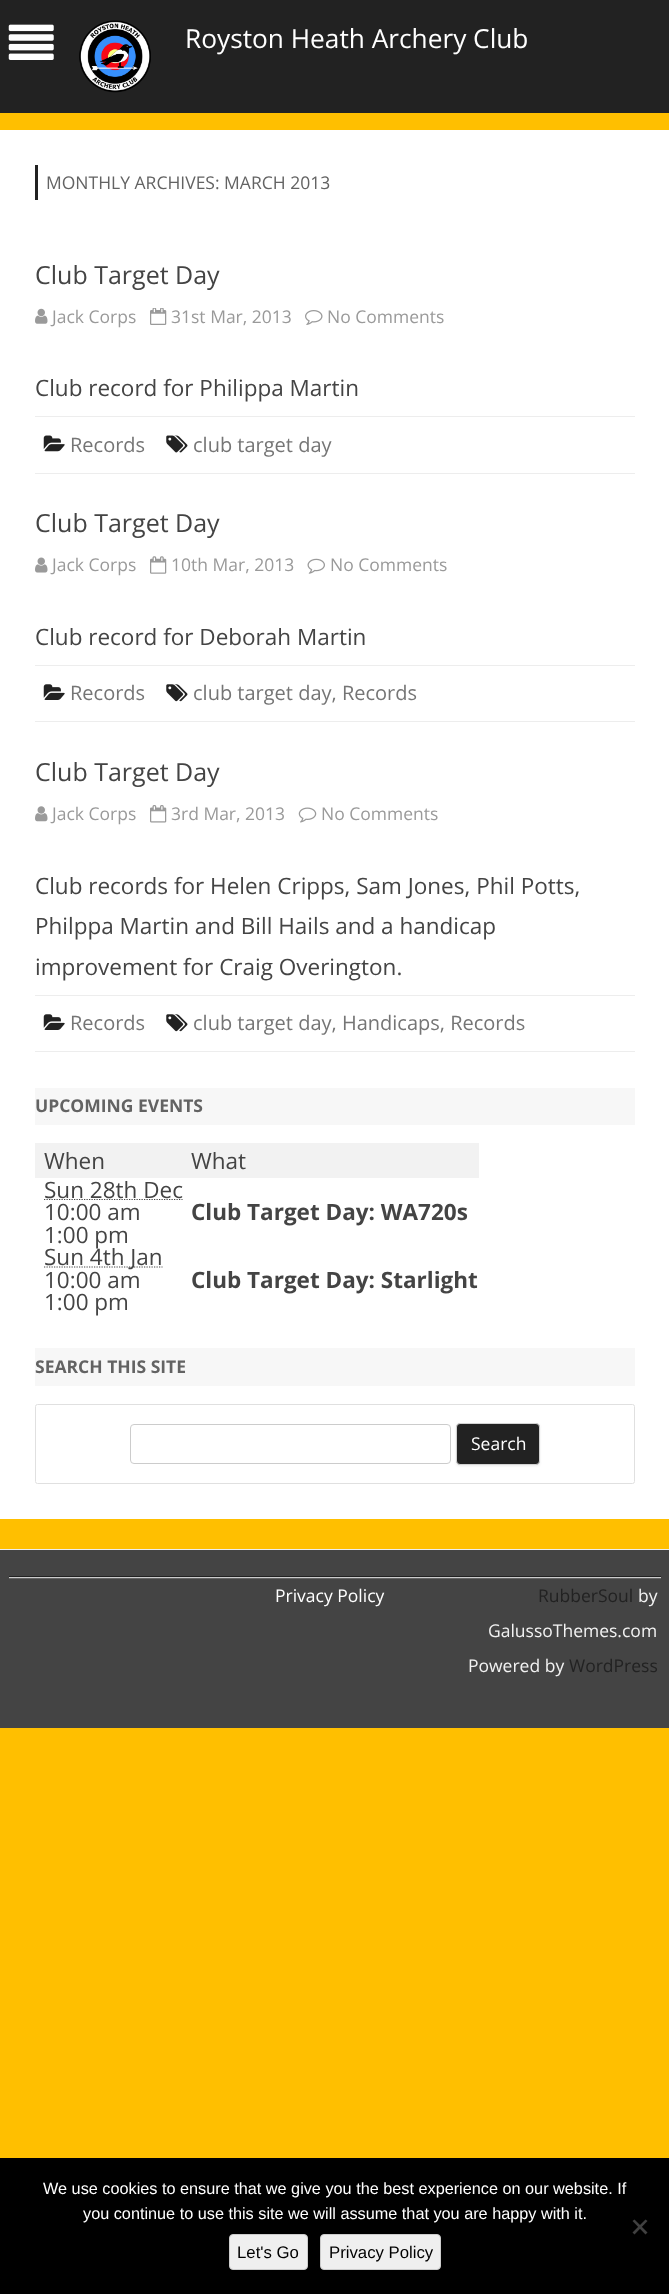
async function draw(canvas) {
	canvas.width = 669;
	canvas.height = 2294;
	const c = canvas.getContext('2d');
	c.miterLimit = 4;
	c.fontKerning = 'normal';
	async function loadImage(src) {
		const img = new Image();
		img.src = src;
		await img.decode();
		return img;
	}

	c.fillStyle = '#ffbf00';
	c.fillRect(0, 0, 669, 2294);
	c.fillStyle = '#222';
	c.fillRect(0, 0, 669, 113);
	c.drawImage(await loadImage('img1.png'), 8, 24, 46, 36);
	c.drawImage(await loadImage('img2.png'), 79, 20, 72, 73);
	c.font = '26.25px Open Sans';
	c.fillStyle = '#fff';
	c.fillText('Royston Heath Archery Club', 185, 48);
	c.fillRect(0, 130, 669, 1389);
	c.fillStyle = '#222';
	c.fillRect(35, 165, 3, 35);
	c.font = '17.5px Open Sans';
	c.fillStyle = '#636363';
	c.fillText('MONTHLY ARCHIVES: MARCH 2013', 46, 189);
	c.fillStyle = '#ededed';
	c.fillRect(35, 473, 600, 1);
	c.font = '25px Open Sans';
	c.fillStyle = '#444';
	c.fillText('Club Target Day', 35, 284);
	c.drawImage(await loadImage('img3.png'), 35, 308, 13, 16);
	c.font = '17.5px Open Sans';
	c.fillStyle = '#9a9a9a';
	c.fillText('Jack Corps', 52, 323);
	c.drawImage(await loadImage('img4.png'), 150, 308, 17, 17);
	c.fillText('31st Mar, 2013', 171, 323);
	c.drawImage(await loadImage('img5.png'), 305, 310, 18, 15);
	c.fillText('No Comments', 327, 323);
	c.fillStyle = '#ededed';
	c.fillRect(35, 416, 600, 1);
	c.font = '22.5px Open Sans';
	c.fillStyle = '#444';
	c.fillText('Club record for Philippa Martin', 35, 396);
	c.drawImage(await loadImage('img6.png'), 43, 435, 22, 17);
	c.font = '20px Open Sans';
	c.fillStyle = '#757575';
	c.fillText('Records', 70, 452);
	c.drawImage(await loadImage('img7.png'), 166, 435, 22, 18);
	c.fillText('club target day', 193, 452);
	c.fillStyle = '#ededed';
	c.fillRect(35, 721, 600, 1);
	c.font = '25px Open Sans';
	c.fillStyle = '#444';
	c.fillText('Club Target Day', 35, 532);
	c.drawImage(await loadImage('img8.png'), 35, 557, 13, 16);
	c.font = '17.5px Open Sans';
	c.fillStyle = '#9a9a9a';
	c.fillText('Jack Corps', 52, 571);
	c.drawImage(await loadImage('img9.png'), 150, 556, 17, 18);
	c.fillText('10th Mar, 2013', 171, 571);
	c.drawImage(await loadImage('img10.png'), 307, 558, 18, 16);
	c.fillText('No Comments', 330, 571);
	c.fillStyle = '#ededed';
	c.fillRect(35, 665, 600, 1);
	c.font = '22.5px Open Sans';
	c.fillStyle = '#444';
	c.fillText('Club record for Deborah Martin', 35, 645);
	c.drawImage(await loadImage('img11.png'), 43, 684, 22, 16);
	c.font = '20px Open Sans';
	c.fillStyle = '#757575';
	c.fillText('Records', 70, 700);
	c.drawImage(await loadImage('img12.png'), 166, 684, 22, 18);
	c.fillText('club target day, Records', 193, 700);
	c.fillStyle = '#ededed';
	c.fillRect(35, 1051, 600, 1);
	c.font = '25px Open Sans';
	c.fillStyle = '#444';
	c.fillText('Club Target Day', 35, 781);
	c.drawImage(await loadImage('img13.png'), 35, 806, 13, 16);
	c.font = '17.5px Open Sans';
	c.fillStyle = '#9a9a9a';
	c.fillText('Jack Corps', 52, 820);
	c.drawImage(await loadImage('img14.png'), 150, 805, 17, 18);
	c.fillText('3rd Mar, 2013', 171, 820);
	c.drawImage(await loadImage('img15.png'), 298, 807, 19, 16);
	c.fillText('No Comments', 321, 820);
	c.fillStyle = '#ededed';
	c.fillRect(35, 995, 600, 1);
	c.font = '22.5px Open Sans';
	c.fillStyle = '#444';
	for (const [text, x, y] of [
		['Club records for Helen Cripps, Sam Jones, Phil Potts,', 35, 894],
		['Philppa Martin and Bill Hails and a handicap', 35, 934],
		['improvement for Craig Overington.', 35, 975],
	]) {
		c.fillText(text, x, y);
	}
	c.drawImage(await loadImage('img11.png'), 43, 1014, 22, 16);
	c.font = '20px Open Sans';
	c.fillStyle = '#757575';
	c.fillText('Records', 70, 1030);
	c.drawImage(await loadImage('img12.png'), 166, 1014, 22, 18);
	c.fillText('club target day, Handicaps, Records', 193, 1030);
	c.fillStyle = '#f7f7f7';
	c.fillRect(35, 1088, 600, 37);
	c.font = 'bold 17.5px Open Sans';
	c.fillStyle = '#636363';
	c.fillText('UPCOMING EVENTS', 35, 1112);
	c.fillStyle = '#f2f2f2';
	c.fillRect(35, 1143, 444, 35);
	c.font = '22.5px Open Sans';
	c.fillStyle = '#444';
	c.fillText('When', 44, 1169);
	c.fillText('What', 191, 1169);
	c.beginPath();
	c.moveTo(44, 1199.5);
	c.lineTo(182.5, 1199.5);
	c.strokeStyle = '#444';
	c.lineWidth = 1.2;
	c.setLineDash([1.25, 1.25]);
	c.stroke();
	for (const [text, x, y] of [
		['Sun 28th Dec', 44, 1198],
		['10:00 am', 44, 1220],
		['1:00 pm', 44, 1243],
	]) {
		c.fillText(text, x, y);
	}
	c.font = 'bold 22.5px Open Sans';
	c.fillText('Club Target Day: WA720s', 191, 1220);
	c.beginPath();
	c.moveTo(44, 1267);
	c.lineTo(162.5, 1267);
	c.stroke();
	c.font = '22.5px Open Sans';
	for (const [text, x, y] of [
		['Sun 4th Jan', 44, 1265],
		['10:00 am', 44, 1288],
		['1:00 pm', 44, 1310],
	]) {
		c.fillText(text, x, y);
	}
	c.font = 'bold 22.5px Open Sans';
	c.fillText('Club Target Day: Starlight', 191, 1288);
	c.fillStyle = '#f7f7f7';
	c.fillRect(35, 1348, 600, 38);
	c.font = 'bold 17.5px Open Sans';
	c.fillStyle = '#636363';
	c.fillText('SEARCH THIS SITE', 35, 1373);
	c.beginPath();
	c.roundRect(35.5, 1404.5, 599, 79, 2);
	c.strokeStyle = '#e0e0e0';
	c.lineWidth = 1;
	c.setLineDash([]);
	c.stroke();
	c.beginPath();
	c.roundRect(130.5, 1424.5, 320, 39, 3.5);
	c.strokeStyle = '#ccc';
	c.stroke();
	c.fillStyle = '#4040401a';
	c.filter = 'blur(1px)';
	c.beginPath();
	c.roundRect(456, 1424, 84, 42, 4);
	c.fill();
	c.filter = 'none';
	c.fillStyle = '#222';
	c.beginPath();
	c.roundRect(456.5, 1423.5, 83, 41, 3.5);
	c.fill();
	c.strokeStyle = '#d2d2d2';
	c.stroke();
	c.font = '17.5px Open Sans';
	c.fillStyle = '#fff';
	c.fillText('Search', 471, 1450);
	for (const [x, y, w, h, color] of [
		[0, 1550, 669, 178, '#444'],
		[0, 1549, 669, 1, '#ededed'],
		[9, 1577, 652, 1, '#ccc'],
		[9, 1576, 652, 1, '#222'],
		[9, 1578, 652, 1, '#666'],
	]) {
		c.fillStyle = color;
		c.fillRect(x, y, w, h);
	}
	c.fillStyle = '#fff';
	c.fillText('Privacy Policy', 275, 1602);
	c.fillStyle = '#222';
	c.fillText('RubberSoul', 538, 1602);
	c.fillStyle = '#f2f2f2';
	for (const [text, x, y] of [
		['by', 638, 1602],
		['GalussoThemes.com', 488, 1637],
		['Powered by', 468, 1672],
	]) {
		c.fillText(text, x, y);
	}
	c.fillStyle = '#222';
	c.fillText('WordPress', 569, 1672);
	c.fillStyle = '#000';
	c.fillRect(0, 2158, 669, 136);
	c.font = '16.25px Liberation Sans';
	c.fillStyle = '#fff';
	c.fillText('We use cookies to ensure that we give you the best experience on our website. If', 43, 2194);
	c.fillText('you continue to use this site we will assume that you are happy with it.', 83, 2219);
	c.fillStyle = '#404040';
	c.beginPath();
	c.moveTo(645.5, 2219.5);
	c.lineTo(647.5, 2221);
	c.lineTo(634.5, 2234.5);
	c.lineTo(632.5, 2232.5);
	c.closePath();
	c.fill();
	c.beginPath();
	c.moveTo(632.5, 2221);
	c.lineTo(634.5, 2219.5);
	c.lineTo(647.5, 2232.5);
	c.lineTo(645.5, 2234.5);
	c.closePath();
	c.fill();
	c.fillStyle = '#efefef';
	c.beginPath();
	c.roundRect(229.5, 2234.5, 78, 35, 3.5);
	c.fill();
	c.strokeStyle = '#ccc';
	c.stroke();
	c.font = '16.75px Liberation Sans';
	c.fillStyle = '#000';
	c.fillText('Let\'s Go', 237, 2258);
	c.fillStyle = '#efefef';
	c.beginPath();
	c.roundRect(320.5, 2234.5, 120, 35, 3.5);
	c.fill();
	c.stroke();
	c.fillStyle = '#000';
	c.fillText('Privacy Policy', 329, 2258);
}

draw(document.querySelector('canvas'));
